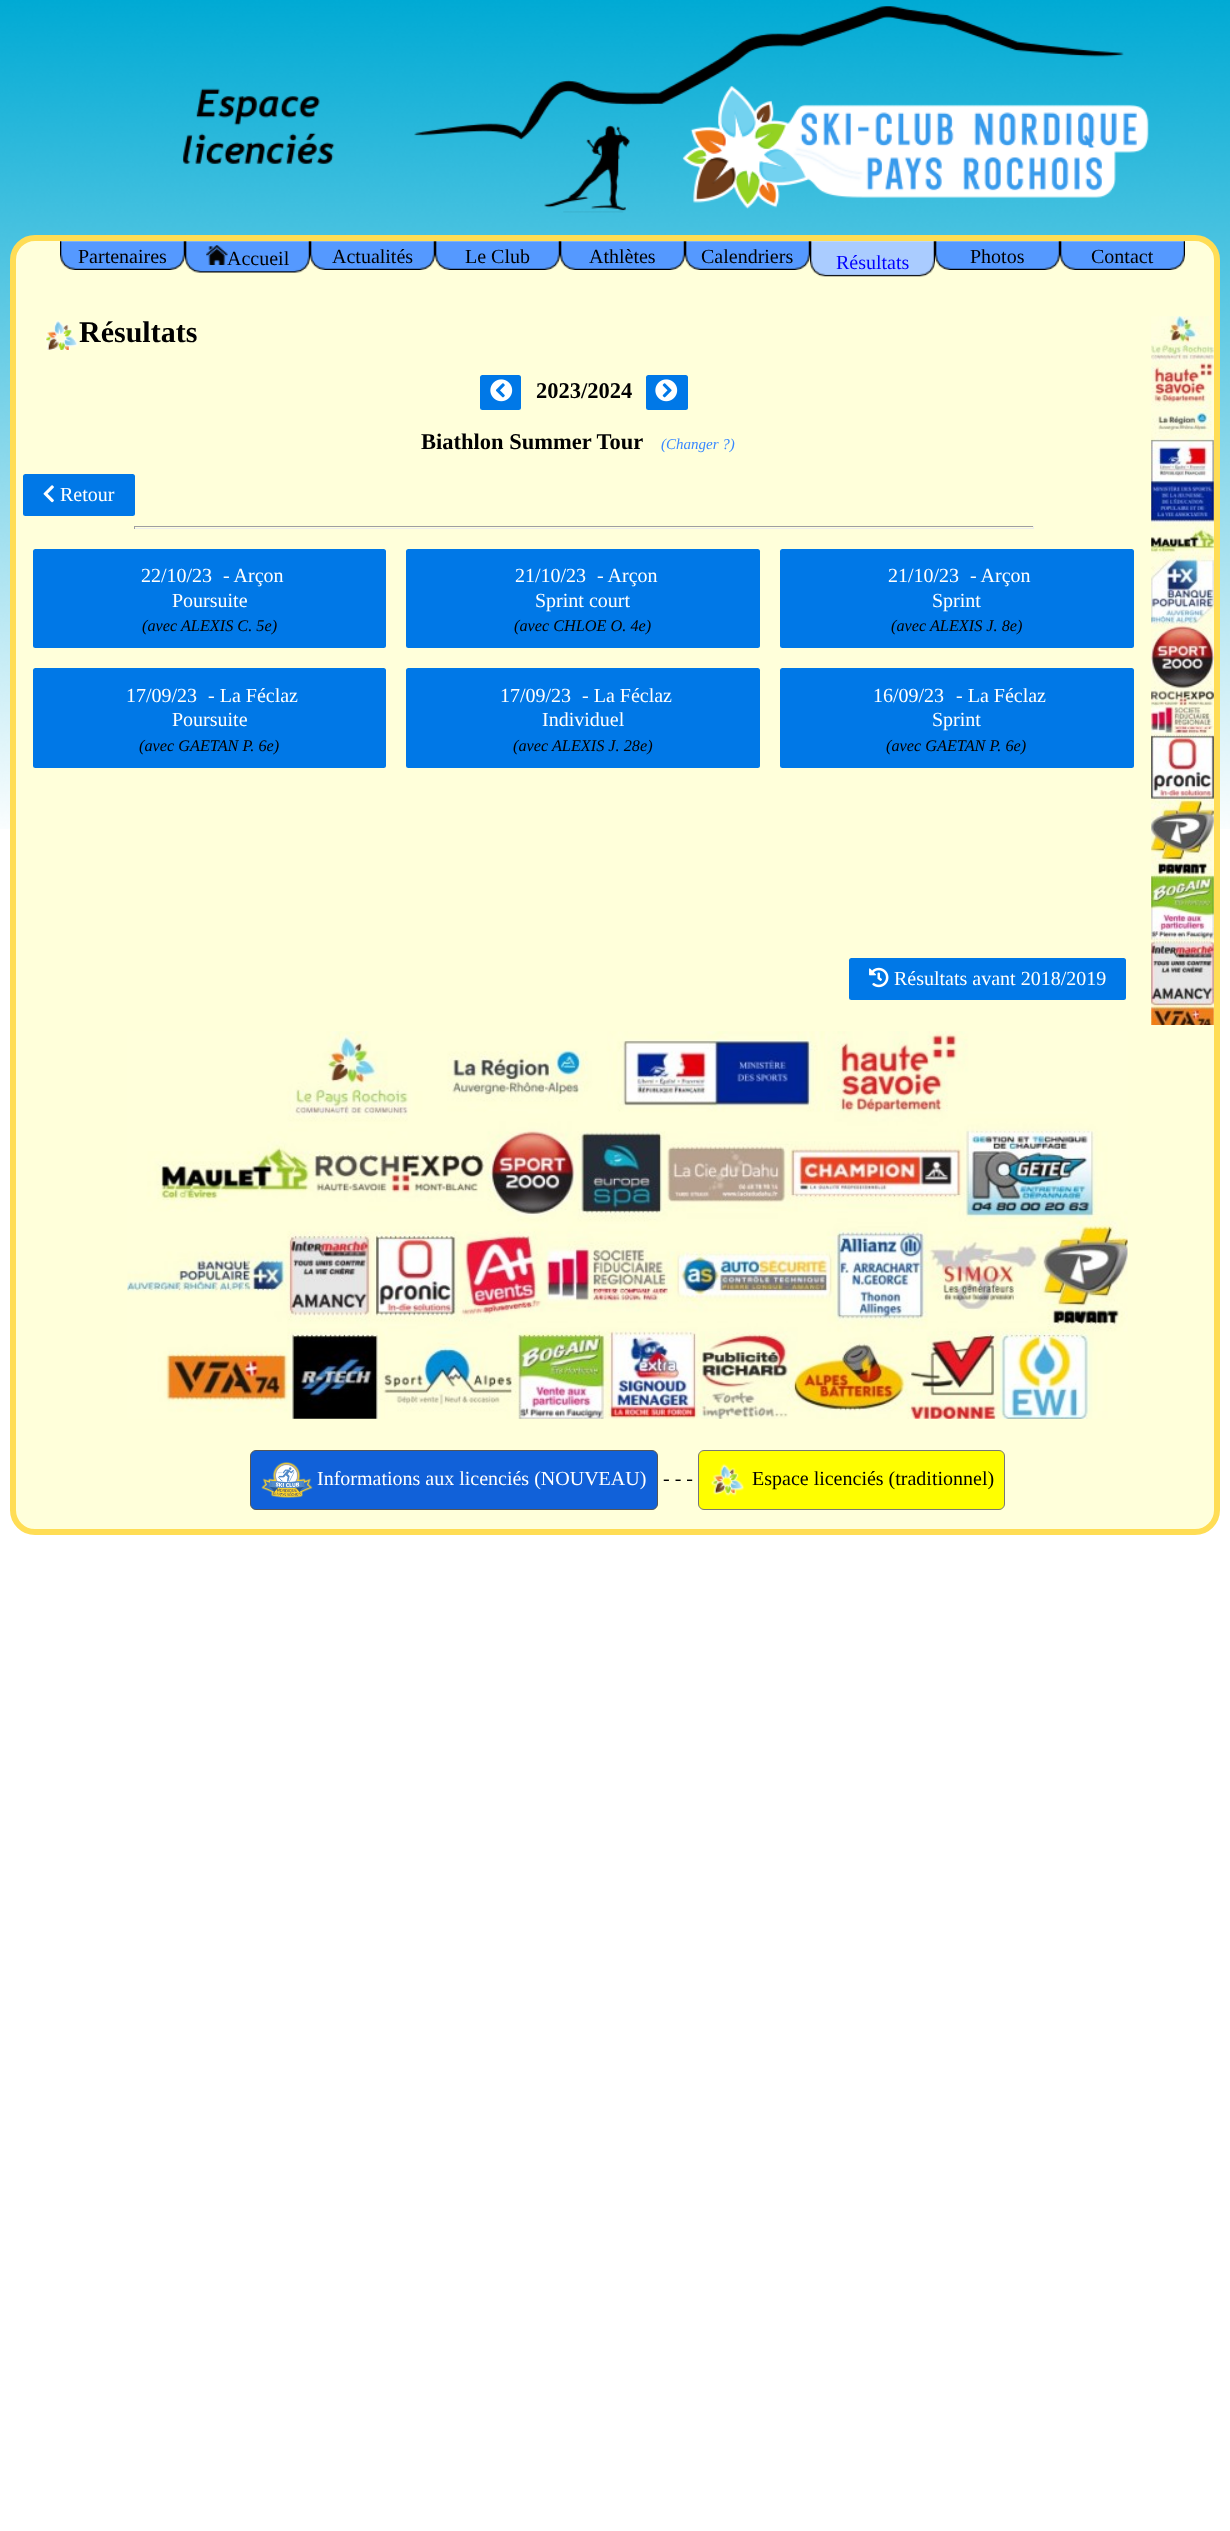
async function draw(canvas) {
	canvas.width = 1230;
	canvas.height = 2531;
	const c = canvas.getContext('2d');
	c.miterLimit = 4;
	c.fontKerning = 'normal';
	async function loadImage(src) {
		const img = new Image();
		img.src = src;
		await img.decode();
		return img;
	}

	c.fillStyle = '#fff';
	c.fillRect(0, 0, 1230, 2531);
	c.drawImage(await loadImage('img1.png'), 0, 0, 1230, 829);
	c.fillStyle = '#ffffda';
	c.beginPath();
	c.roundRect(13, 238, 1204, 1294, 22);
	c.fill();
	c.strokeStyle = '#fd5';
	c.lineWidth = 6;
	c.stroke();
	c.drawImage(await loadImage('img2.png'), 60, 241, 125, 29);
	c.font = '20px Liberation Serif';
	c.fillStyle = '#000';
	c.fillText('Partenaires', 78, 263);
	c.drawImage(await loadImage('img3.png'), 185, 241, 125, 32);
	c.drawImage(await loadImage('img4.png'), 206, 245, 22, 20);
	c.fillText('Accueil', 227, 265);
	c.drawImage(await loadImage('img2.png'), 310, 241, 125, 29);
	c.fillText('Actualités', 332, 263);
	c.drawImage(await loadImage('img5.png'), 435, 241, 125, 29);
	c.fillText('Le Club', 465, 263);
	c.drawImage(await loadImage('img6.png'), 560, 241, 125, 29);
	c.fillText('Athlètes', 589, 263);
	c.drawImage(await loadImage('img5.png'), 685, 241, 125, 29);
	c.fillText('Calendriers', 701, 263);
	c.drawImage(await loadImage('img7.png'), 810, 241, 125, 36);
	c.fillStyle = '#00f';
	c.fillText('Résultats', 836, 269);
	c.drawImage(await loadImage('img5.png'), 935, 241, 125, 29);
	c.fillStyle = '#000';
	c.fillText('Photos', 970, 263);
	c.drawImage(await loadImage('img2.png'), 1060, 241, 125, 29);
	c.fillText('Contact', 1091, 263);
	c.drawImage(await loadImage('img8.png'), 1151, 316, 63, 709);
	c.drawImage(await loadImage('img9.png'), 44, 320, 35, 30);
	c.font = 'bold 30px Liberation Serif';
	c.fillText('Résultats', 79, 342);
	c.fillStyle = '#0078e7';
	c.beginPath();
	c.roundRect(480, 375, 41, 35, 2.5);
	c.fill();
	c.drawImage(await loadImage('img10.png'), 490, 379, 23, 23);
	c.font = 'bold 22.5px Liberation Serif';
	c.fillStyle = '#000';
	c.fillText('2023/2024', 536, 398);
	c.fillStyle = '#0078e7';
	c.beginPath();
	c.roundRect(646, 375, 42, 35, 2.5);
	c.fill();
	c.drawImage(await loadImage('img11.png'), 655, 379, 23, 23);
	c.fillStyle = '#000';
	c.fillText('Biathlon Summer Tour', 421, 449);
	c.font = 'italic 15px Liberation Serif';
	c.fillStyle = '#3888ff';
	c.fillText('(Changer ?)', 661, 449);
	c.fillStyle = '#0078e7';
	c.beginPath();
	c.roundRect(23, 474, 112, 42, 2.5);
	c.fill();
	c.drawImage(await loadImage('img12.png'), 43, 485, 11, 18);
	c.font = '20px Liberation Serif';
	c.fillStyle = '#fff';
	c.fillText('Retour', 60, 501);
	for (const [x, y, w, h, color] of [
		[134, 526, 900, 1, '#9f9f9f'],
		[1033, 526, 1, 3, '#eee'],
		[134, 528, 900, 1, '#eee'],
		[134, 526, 1, 3, '#9f9f9f'],
	]) {
		c.fillStyle = color;
		c.fillRect(x, y, w, h);
	}
	c.fillStyle = '#0078e7';
	c.beginPath();
	c.roundRect(33, 549, 353, 99, 2.5);
	c.fill();
	c.fillStyle = '#fff';
	for (const [text, x, y] of [
		['22/10/23', 141, 582],
		['- Arçon', 223, 582],
		['Poursuite', 172, 607],
	]) {
		c.fillText(text, x, y);
	}
	c.font = 'italic 16.25px Liberation Serif';
	c.fillStyle = '#000';
	c.fillText('(avec ALEXIS C. 5e)', 142, 631);
	c.fillStyle = '#0078e7';
	c.beginPath();
	c.roundRect(406, 549, 354, 99, 2.5);
	c.fill();
	c.font = '20px Liberation Serif';
	c.fillStyle = '#fff';
	for (const [text, x, y] of [
		['21/10/23', 515, 582],
		['- Arçon', 597, 582],
		['Sprint court', 535, 607],
	]) {
		c.fillText(text, x, y);
	}
	c.font = 'italic 16.25px Liberation Serif';
	c.fillStyle = '#000';
	c.fillText('(avec CHLOE O. 4e)', 514, 631);
	c.fillStyle = '#0078e7';
	c.beginPath();
	c.roundRect(780, 549, 354, 99, 2.5);
	c.fill();
	c.font = '20px Liberation Serif';
	c.fillStyle = '#fff';
	for (const [text, x, y] of [
		['21/10/23', 888, 582],
		['- Arçon', 970, 582],
		['Sprint', 932, 607],
	]) {
		c.fillText(text, x, y);
	}
	c.font = 'italic 16.25px Liberation Serif';
	c.fillStyle = '#000';
	c.fillText('(avec ALEXIS J. 8e)', 891, 631);
	c.fillStyle = '#0078e7';
	c.beginPath();
	c.roundRect(33, 668, 353, 100, 2.5);
	c.fill();
	c.font = '20px Liberation Serif';
	c.fillStyle = '#fff';
	for (const [text, x, y] of [
		['17/09/23', 126, 702],
		['- La Féclaz', 208, 702],
		['Poursuite', 172, 726],
	]) {
		c.fillText(text, x, y);
	}
	c.font = 'italic 16.25px Liberation Serif';
	c.fillStyle = '#000';
	c.fillText('(avec GAETAN P. 6e)', 139, 751);
	c.fillStyle = '#0078e7';
	c.beginPath();
	c.roundRect(406, 668, 354, 100, 2.5);
	c.fill();
	c.font = '20px Liberation Serif';
	c.fillStyle = '#fff';
	for (const [text, x, y] of [
		['17/09/23', 500, 702],
		['- La Féclaz', 582, 702],
		['Individuel', 542, 726],
	]) {
		c.fillText(text, x, y);
	}
	c.font = 'italic 16.25px Liberation Serif';
	c.fillStyle = '#000';
	c.fillText('(avec ALEXIS J. 28e)', 513, 751);
	c.fillStyle = '#0078e7';
	c.beginPath();
	c.roundRect(780, 668, 354, 100, 2.5);
	c.fill();
	c.font = '20px Liberation Serif';
	c.fillStyle = '#fff';
	for (const [text, x, y] of [
		['16/09/23', 873, 702],
		['- La Féclaz', 956, 702],
		['Sprint', 932, 726],
	]) {
		c.fillText(text, x, y);
	}
	c.font = 'italic 16.25px Liberation Serif';
	c.fillStyle = '#000';
	c.fillText('(avec GAETAN P. 6e)', 886, 751);
	c.fillStyle = '#0078e7';
	c.beginPath();
	c.roundRect(849, 958, 277, 42, 2.5);
	c.fill();
	c.drawImage(await loadImage('img13.png'), 869, 967, 20, 21);
	c.font = '20px Liberation Serif';
	c.fillStyle = '#fff';
	c.fillText('Résultats avant 2018/2019', 894, 985);
	c.drawImage(await loadImage('img14.png'), 127, 1031, 1001, 388);
	c.fillStyle = '#1161d9';
	c.beginPath();
	c.roundRect(250.5, 1450.5, 407, 59, 5.5);
	c.fill();
	c.strokeStyle = '#555';
	c.lineWidth = 1;
	c.stroke();
	c.drawImage(await loadImage('img15.png'), 261, 1462, 52, 36);
	c.fillStyle = '#fff';
	c.fillText('Informations aux licenciés (NOUVEAU)', 317, 1485);
	c.fillStyle = '#000';
	c.fillText('- - -', 663, 1485);
	c.fillStyle = '#ff0';
	c.beginPath();
	c.roundRect(698.5, 1450.5, 306, 59, 5.5);
	c.fill();
	c.strokeStyle = '#777';
	c.stroke();
	c.drawImage(await loadImage('img16.png'), 710, 1463, 35, 34);
	c.fillStyle = '#000';
	c.fillText('Espace licenciés (traditionnel)', 752, 1485);
}

draw(document.querySelector('canvas'));
